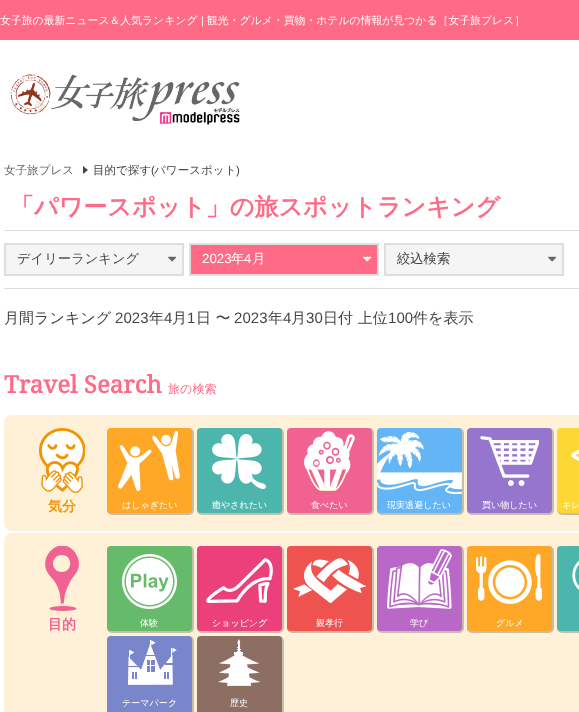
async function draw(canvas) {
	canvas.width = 579;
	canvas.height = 712;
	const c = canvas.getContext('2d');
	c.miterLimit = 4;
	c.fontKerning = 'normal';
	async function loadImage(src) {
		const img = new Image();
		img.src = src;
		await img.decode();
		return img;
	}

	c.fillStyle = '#fff';
	c.fillRect(0, 0, 579, 712);
	c.fillStyle = '#ff6a86';
	c.fillRect(0, 0, 579, 40);
	c.letterSpacing = '0.05px';
	c.font = '500 10.8px WenQuanYi Zen Hei';
	c.fillStyle = '#fff';
	c.fillText('女子旅の最新ニュース＆人気ランキング', 0, 24);
	c.font = '10.8px Liberation Sans';
	c.fillText('|', 201, 24);
	c.font = '500 10.8px WenQuanYi Zen Hei';
	c.fillText('観光・グルメ・買物・ホテルの情報が見つかる［女子旅プレス］', 207, 24);
	c.drawImage(await loadImage('img1.png'), 10, 74, 230, 51);
	c.font = '500 11.5px WenQuanYi Zen Hei';
	c.fillStyle = '#666';
	c.fillText('女子旅プレス', 4, 174);
	c.fillStyle = '#444';
	c.beginPath();
	c.moveTo(83, 174);
	c.lineTo(83, 166);
	c.lineTo(88, 170);
	c.closePath();
	c.fill();
	c.fillText('目的で探す', 93, 174);
	c.font = '11.5px Liberation Sans';
	c.fillText('(', 151, 174);
	c.font = '500 11.5px WenQuanYi Zen Hei';
	c.fillText('パワースポット', 154, 174);
	c.font = '11.5px Liberation Sans';
	c.fillText(')', 236, 174);
	c.fillStyle = '#ddd';
	c.fillRect(4, 230, 575, 1);
	c.font = 'bold 24px WenQuanYi Zen Hei';
	c.fillStyle = '#ff6a86';
	c.fillText('「パワースポット」の旅スポットランキング', 10, 215);
	c.fillStyle = '#f5f5f5';
	c.beginPath();
	c.rect(5, 244, 178, 31);
	c.fill();
	c.strokeStyle = '#dedede';
	c.lineWidth = 2;
	c.stroke();
	c.font = '500 13.25px WenQuanYi Zen Hei';
	c.fillStyle = '#444';
	c.fillText('デイリーランキング', 17, 263);
	c.drawImage(await loadImage('img2.png'), 168, 256, 9, 6);
	c.fillStyle = '#ff6a86';
	c.beginPath();
	c.rect(190, 244, 188, 31);
	c.fill();
	c.stroke();
	c.font = '13.25px Liberation Sans';
	c.fillStyle = '#fff';
	c.fillText('2023', 202, 263);
	c.font = '500 13.25px WenQuanYi Zen Hei';
	c.fillText('年', 231, 263);
	c.font = '13.25px Liberation Sans';
	c.fillText('4', 244, 263);
	c.font = '500 13.25px WenQuanYi Zen Hei';
	c.fillText('月', 252, 263);
	c.drawImage(await loadImage('img3.png'), 363, 256, 9, 6);
	c.fillStyle = '#f5f5f5';
	c.beginPath();
	c.rect(385, 244, 178, 31);
	c.fill();
	c.stroke();
	c.fillStyle = '#444';
	c.fillText('絞込検索', 397, 263);
	c.drawImage(await loadImage('img2.png'), 548, 256, 9, 6);
	c.fillStyle = '#ddd';
	c.fillRect(4, 288, 575, 1);
	c.font = '500 15px WenQuanYi Zen Hei';
	c.fillStyle = '#444';
	c.fillText('月間ランキング', 4, 323);
	c.font = '15px Liberation Sans';
	c.fillText('2023', 115, 323);
	c.font = '500 15px WenQuanYi Zen Hei';
	c.fillText('年', 149, 323);
	c.font = '15px Liberation Sans';
	c.fillText('4', 164, 323);
	c.font = '500 15px WenQuanYi Zen Hei';
	c.fillText('月', 172, 323);
	c.font = '15px Liberation Sans';
	c.fillText('1', 187, 323);
	c.font = '500 15px WenQuanYi Zen Hei';
	c.fillText('日 〜', 196, 323);
	c.font = '15px Liberation Sans';
	c.fillText('2023', 234, 323);
	c.font = '500 15px WenQuanYi Zen Hei';
	c.fillText('年', 268, 323);
	c.font = '15px Liberation Sans';
	c.fillText('4', 283, 323);
	c.font = '500 15px WenQuanYi Zen Hei';
	c.fillText('月', 291, 323);
	c.font = '15px Liberation Sans';
	c.fillText('30', 306, 323);
	c.font = '500 15px WenQuanYi Zen Hei';
	c.fillText('日付 上位', 323, 323);
	c.font = '15px Liberation Sans';
	c.fillText('100', 388, 323);
	c.font = '500 15px WenQuanYi Zen Hei';
	c.fillText('件を表示', 413, 323);
	c.font = 'bold 24px Droid Serif';
	c.fillStyle = '#ff6a86';
	c.fillText('Travel Search', 4, 393);
	c.font = '500 12px WenQuanYi Zen Hei';
	c.fillText('旅の検索', 168, 393);
	c.fillStyle = '#fef1d7';
	c.beginPath();
	c.roundRect(4, 415, 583, 116, 8);
	c.fill();
	c.drawImage(await loadImage('img4.png'), 39, 428, 46, 65);
	c.font = 'bold 14px WenQuanYi Zen Hei';
	c.fillStyle = '#f29300';
	c.fillText('気分', 48, 511);
	c.fillStyle = '#4444444d';
	c.filter = 'blur(0.5px)';
	c.beginPath();
	c.roundRect(107, 428, 87, 87, 5);
	c.fill();
	c.filter = 'none';
	c.fillStyle = '#ffa726';
	c.beginPath();
	c.roundRect(107, 428, 85, 85, 4);
	c.fill();
	c.drawImage(await loadImage('img5.png'), 118, 431, 62, 60);
	c.font = '500 9px WenQuanYi Zen Hei';
	c.fillStyle = '#fff';
	c.fillText('はしゃぎたい', 122, 508);
	c.fillStyle = '#4444444d';
	c.filter = 'blur(0.5px)';
	c.beginPath();
	c.roundRect(197, 428, 87, 87, 5);
	c.fill();
	c.filter = 'none';
	c.fillStyle = '#4db6ac';
	c.beginPath();
	c.roundRect(197, 428, 85, 85, 4);
	c.fill();
	c.drawImage(await loadImage('img6.png'), 212, 434, 54, 55);
	c.fillStyle = '#fff';
	c.fillText('癒やされたい', 212, 508);
	c.fillStyle = '#4444444d';
	c.filter = 'blur(0.5px)';
	c.beginPath();
	c.roundRect(287, 428, 87, 87, 5);
	c.fill();
	c.filter = 'none';
	c.fillStyle = '#f06292';
	c.beginPath();
	c.roundRect(287, 428, 85, 85, 4);
	c.fill();
	c.drawImage(await loadImage('img7.png'), 304, 431, 51, 60);
	c.fillStyle = '#fff';
	c.fillText('食べたい', 311, 508);
	c.fillStyle = '#4444444d';
	c.filter = 'blur(0.5px)';
	c.beginPath();
	c.roundRect(377, 428, 87, 87, 5);
	c.fill();
	c.filter = 'none';
	c.fillStyle = '#64b5f6';
	c.beginPath();
	c.roundRect(377, 428, 85, 85, 4);
	c.fill();
	c.drawImage(await loadImage('img8.png'), 377, 431, 85, 64);
	c.fillStyle = '#fff';
	c.fillText('現実逃避したい', 387, 508);
	c.fillStyle = '#4444444d';
	c.filter = 'blur(0.5px)';
	c.beginPath();
	c.roundRect(467, 428, 87, 87, 5);
	c.fill();
	c.filter = 'none';
	c.fillStyle = '#9575cd';
	c.beginPath();
	c.roundRect(467, 428, 85, 85, 4);
	c.fill();
	c.drawImage(await loadImage('img9.png'), 480, 436, 59, 50);
	c.fillStyle = '#fff';
	c.fillText('買い物したい', 482, 508);
	c.fillStyle = '#4444444d';
	c.filter = 'blur(0.5px)';
	c.beginPath();
	c.roundRect(557, 428, 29, 87, 5);
	c.fill();
	c.filter = 'none';
	c.fillStyle = '#fdd835';
	c.beginPath();
	c.roundRect(557, 428, 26, 85, 4);
	c.fill();
	c.drawImage(await loadImage('img10.png'), 571, 449, 8, 13);
	c.fillStyle = '#fff';
	c.fillText('キレ', 562, 508);
	c.fillStyle = '#fef1d7';
	c.beginPath();
	c.roundRect(4, 533, 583, 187, 8);
	c.fill();
	c.fillStyle = '#f06292';
	c.beginPath();
	c.ellipse(63, 608.5, 13.5, 2.5, 0, 0, 2 * Math.PI);
	c.fill();
	c.save();
	c.beginPath();
	c.rect(45, 546, 34, 65);
	c.clip();
	c.beginPath();
	c.moveTo(79, 564);
	c.bezierCurveTo(79, 559, 77, 555, 74, 551);
	c.bezierCurveTo(58, 534, 35, 560, 50, 576);
	c.bezierCurveTo(55, 581, 59, 588, 60, 595);
	c.lineTo(61, 604);
	c.lineTo(64, 603);
	c.bezierCurveTo(64, 596, 66, 589, 70, 582);
	c.bezierCurveTo(73, 576, 79, 572, 79, 564);
	c.closePath();
	c.moveTo(62, 572);
	c.bezierCurveTo(50, 572, 50, 555, 62, 555);
	c.bezierCurveTo(73, 555, 73, 572, 62, 572);
	c.closePath();
	c.fill();
	c.restore();
	c.font = 'bold 14px WenQuanYi Zen Hei';
	c.fillText('目的', 48, 629);
	c.fillStyle = '#4444444d';
	c.filter = 'blur(0.5px)';
	c.beginPath();
	c.roundRect(107, 546, 87, 87, 5);
	c.fill();
	c.filter = 'none';
	c.fillStyle = '#66bb6a';
	c.beginPath();
	c.roundRect(107, 546, 85, 85, 4);
	c.fill();
	c.drawImage(await loadImage('img11.png'), 122, 554, 55, 55);
	c.font = '500 9px WenQuanYi Zen Hei';
	c.fillStyle = '#fff';
	c.fillText('体験', 140, 626);
	c.fillStyle = '#4444444d';
	c.filter = 'blur(0.5px)';
	c.beginPath();
	c.roundRect(197, 546, 87, 87, 5);
	c.fill();
	c.filter = 'none';
	c.fillStyle = '#ec407a';
	c.beginPath();
	c.roundRect(197, 546, 85, 85, 4);
	c.fill();
	c.drawImage(await loadImage('img12.png'), 206, 558, 67, 45);
	c.fillStyle = '#fff';
	c.fillText('ショッピング', 212, 626);
	c.fillStyle = '#4444444d';
	c.filter = 'blur(0.5px)';
	c.beginPath();
	c.roundRect(287, 546, 87, 87, 5);
	c.fill();
	c.filter = 'none';
	c.fillStyle = '#ef5350';
	c.beginPath();
	c.roundRect(287, 546, 85, 85, 4);
	c.fill();
	c.drawImage(await loadImage('img13.png'), 293, 558, 73, 45);
	c.fillStyle = '#fff';
	c.fillText('親孝行', 316, 626);
	c.fillStyle = '#4444444d';
	c.filter = 'blur(0.5px)';
	c.beginPath();
	c.roundRect(377, 546, 87, 87, 5);
	c.fill();
	c.filter = 'none';
	c.fillStyle = '#ba68c8';
	c.beginPath();
	c.roundRect(377, 546, 85, 85, 4);
	c.fill();
	c.drawImage(await loadImage('img14.png'), 387, 549, 65, 60);
	c.fillStyle = '#fff';
	c.fillText('学び', 410, 626);
	c.fillStyle = '#4444444d';
	c.filter = 'blur(0.5px)';
	c.beginPath();
	c.roundRect(467, 546, 87, 87, 5);
	c.fill();
	c.filter = 'none';
	c.fillStyle = '#ffa726';
	c.beginPath();
	c.roundRect(467, 546, 85, 85, 4);
	c.fill();
	c.drawImage(await loadImage('img15.png'), 476, 554, 67, 50);
	c.fillStyle = '#fff';
	c.fillText('グルメ', 496, 626);
	c.fillStyle = '#4444444d';
	c.filter = 'blur(0.5px)';
	c.beginPath();
	c.roundRect(557, 546, 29, 87, 5);
	c.fill();
	c.filter = 'none';
	c.fillStyle = '#4db6ac';
	c.beginPath();
	c.roundRect(557, 546, 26, 85, 4);
	c.fill();
	c.drawImage(await loadImage('img16.png'), 572, 560, 7, 30);
	c.fillStyle = '#4444444d';
	c.filter = 'blur(0.5px)';
	c.beginPath();
	c.roundRect(107, 636, 87, 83, 5);
	c.fill();
	c.filter = 'none';
	c.fillStyle = '#7986cb';
	c.beginPath();
	c.roundRect(107, 636, 85, 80, 4);
	c.fill();
	c.drawImage(await loadImage('img17.png'), 128, 640, 49, 45);
	c.fillStyle = '#fff';
	c.fillText('テーマパーク', 122, 706);
	c.fillStyle = '#4444444d';
	c.filter = 'blur(0.5px)';
	c.beginPath();
	c.roundRect(197, 636, 87, 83, 5);
	c.fill();
	c.filter = 'none';
	c.fillStyle = '#8d6e63';
	c.beginPath();
	c.roundRect(197, 636, 85, 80, 4);
	c.fill();
	c.drawImage(await loadImage('img18.png'), 218, 639, 43, 47);
	c.fillStyle = '#fff';
	c.fillText('歴史', 230, 706);
}

draw(document.querySelector('canvas'));
